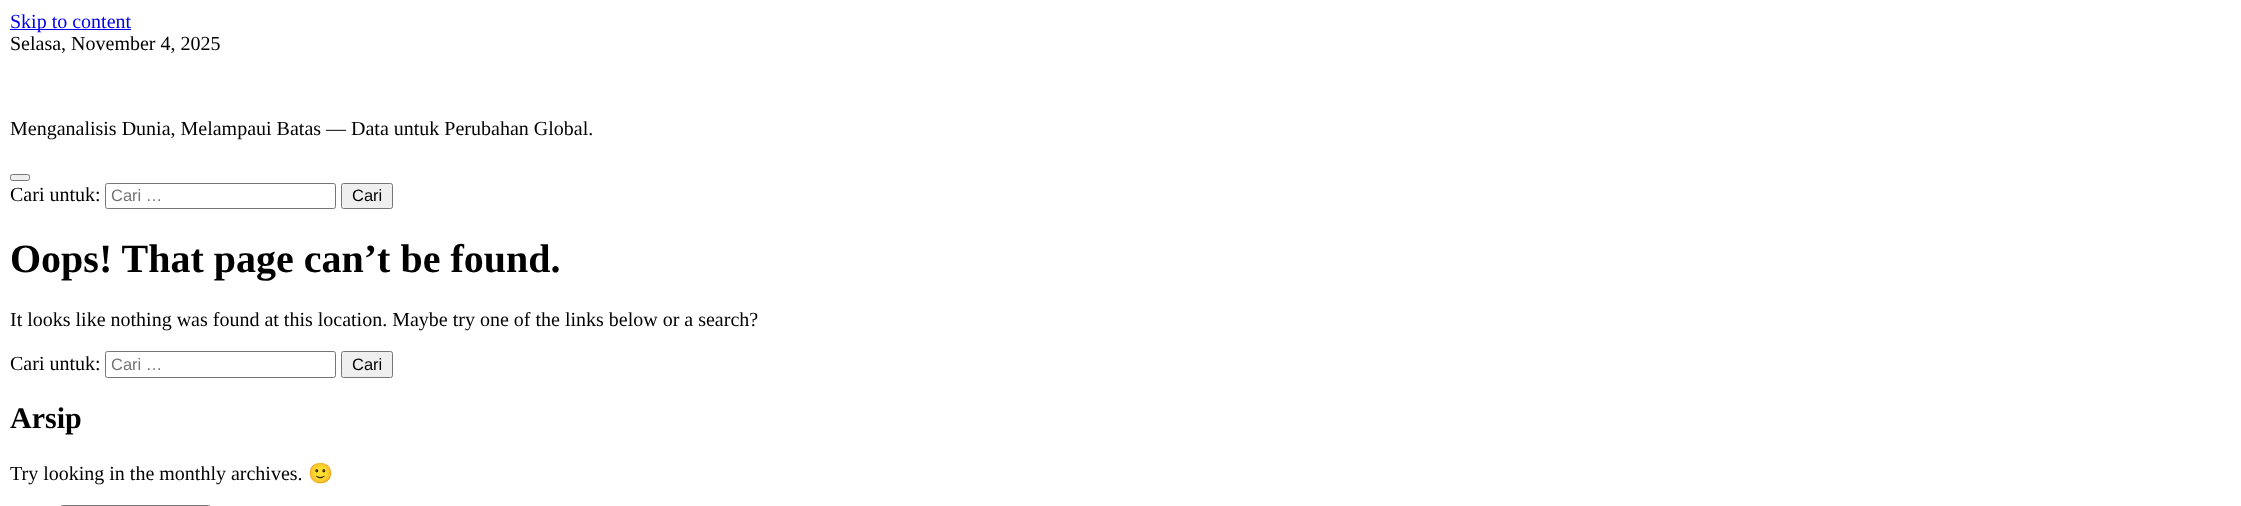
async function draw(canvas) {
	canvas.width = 2241;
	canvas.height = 506;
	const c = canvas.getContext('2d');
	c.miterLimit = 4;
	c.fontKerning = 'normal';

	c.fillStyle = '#fff';
	c.fillRect(0, 0, 2241, 506);
	c.fillStyle = '#00e';
	c.fillRect(10, 29, 121, 1);
	c.font = '20px Liberation Serif';
	c.fillText('Skip to content', 10, 28);
	c.fillStyle = '#000';
	c.fillText('Selasa, November 4, 2025', 10, 50);
	c.fillText('Menganalisis Dunia, Melampaui Batas — Data untuk Perubahan Global.', 10, 135);
	c.fillStyle = '#efefef';
	c.beginPath();
	c.roundRect(10.5, 174.5, 19, 6, 2);
	c.fill();
	c.strokeStyle = '#767676';
	c.stroke();
	c.fillStyle = '#000';
	c.fillText('Cari untuk:', 10, 201);
	c.beginPath();
	c.roundRect(105.5, 183.5, 230, 25, 2);
	c.stroke();
	c.font = '16.5px Liberation Sans';
	c.fillStyle = '#757575';
	c.fillText('Cari …', 111, 201);
	c.fillStyle = '#efefef';
	c.beginPath();
	c.roundRect(341.5, 183.5, 51, 25, 2);
	c.fill();
	c.stroke();
	c.fillStyle = '#000';
	c.fillText('Cari', 352, 201);
	c.font = 'bold 40px Liberation Serif';
	c.fillText('Oops! That page can’t be found.', 10, 272);
	c.font = '20px Liberation Serif';
	c.fillText('It looks like nothing was found at this location. Maybe try one of the links below or a search?', 10, 326);
	c.fillText('Cari untuk:', 10, 370);
	c.beginPath();
	c.roundRect(105.5, 351.5, 230, 26, 2);
	c.stroke();
	c.font = '16.5px Liberation Sans';
	c.fillStyle = '#757575';
	c.fillText('Cari …', 111, 370);
	c.fillStyle = '#efefef';
	c.beginPath();
	c.roundRect(341.5, 351.5, 51, 26, 2);
	c.fill();
	c.stroke();
	c.fillStyle = '#000';
	c.fillText('Cari', 352, 370);
	c.font = 'bold 30px Liberation Serif';
	c.fillText('Arsip', 10, 428);
	c.font = '20px Liberation Serif';
	c.fillText('Try looking in the monthly archives.', 10, 480);
	c.font = '20px Noto Color Emoji';
	c.fillText('🙂', 308, 480);
	c.beginPath();
	c.roundRect(60.5, 505.5, 150, 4, 2);
	c.stroke();
}

draw(document.querySelector('canvas'));
